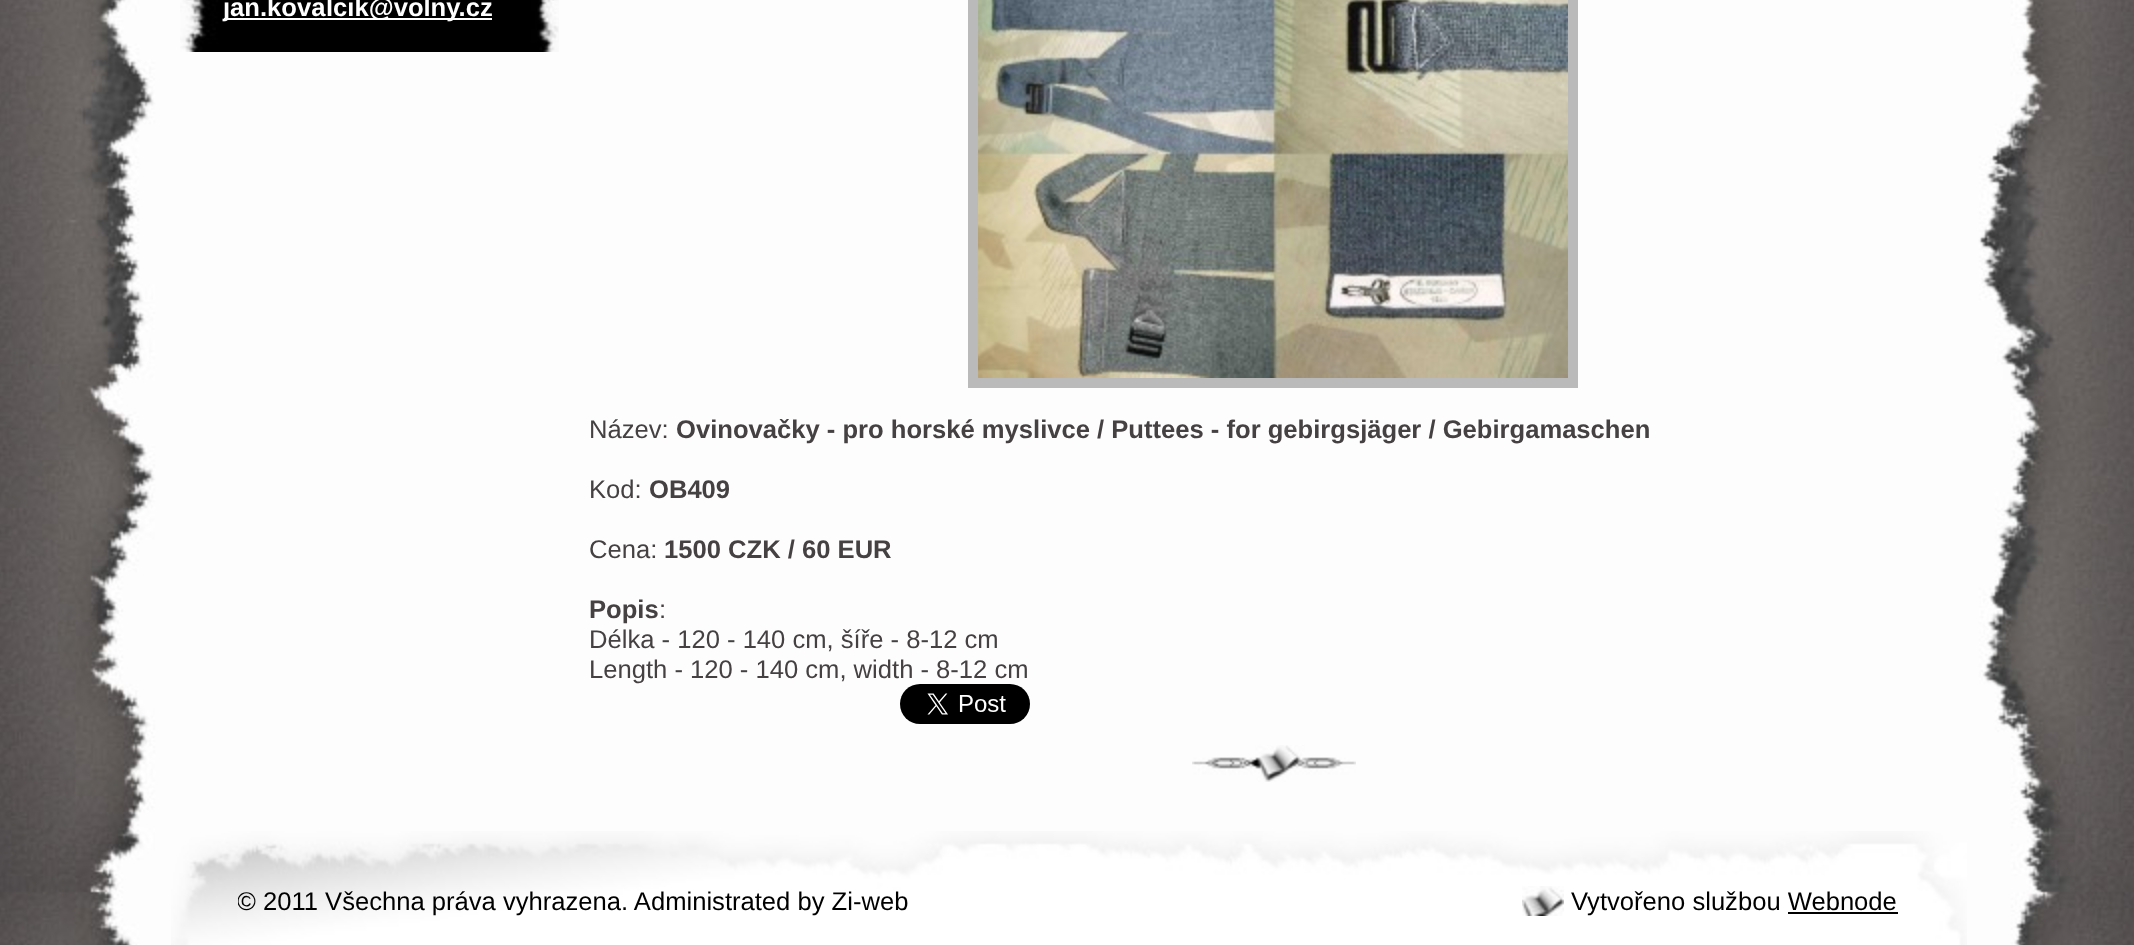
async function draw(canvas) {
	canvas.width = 2134;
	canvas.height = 945;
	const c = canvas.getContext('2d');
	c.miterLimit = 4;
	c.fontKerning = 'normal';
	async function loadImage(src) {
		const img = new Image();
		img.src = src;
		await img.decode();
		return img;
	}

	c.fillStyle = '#fff';
	c.fillRect(0, 0, 2134, 945);
	c.drawImage(await loadImage('img1.png'), 0, 0, 2134, 945);
	c.drawImage(await loadImage('img2.png'), 180, 0, 379, 52);
	c.fillRect(224, 18, 102, 2);
	c.font = 'bold 25.6px Liberation Sans';
	c.fillText('jan.kova', 223, 16);
	c.fillRect(326, 18, 166, 2);
	c.fillText('lcik@volny.cz', 326, 16);
	c.drawImage(await loadImage('img3.png'), 1192, 745, 164, 37);
	c.fillStyle = '#bababa';
	c.fillRect(968, 0, 610, 388);
	c.drawImage(await loadImage('img4.png'), 978, 0, 590, 378);
	c.font = '25.6px Liberation Sans';
	c.fillStyle = '#454143';
	c.fillText('Název:', 589, 438);
	c.font = 'bold 25.6px Liberation Sans';
	c.fillText('Ovinovačky - pro horské myslivce / Puttees - for gebirgsjäger / Gebirgamaschen', 676, 438);
	c.font = '25.6px Liberation Sans';
	c.fillText('Kod:', 589, 498);
	c.font = 'bold 25.6px Liberation Sans';
	c.fillText('OB409', 649, 498);
	c.font = '25.6px Liberation Sans';
	c.fillText('Cena:', 589, 558);
	c.font = 'bold 25.6px Liberation Sans';
	c.fillText('1500 CZK / 60 EUR', 664, 558);
	c.fillText('Popis', 589, 618);
	c.font = '25.6px Liberation Sans';
	for (const [text, x, y] of [
		[':', 659, 618],
		['Délka - 120 - 140 cm, šíře - 8-12 cm', 589, 648],
		['Length - 120 - 140 cm, width - 8-12 cm', 589, 678],
	]) {
		c.fillText(text, x, y);
	}
	c.drawImage(await loadImage('img5.png'), 900, 684, 130, 40);
	c.drawImage(await loadImage('img6.png'), 171, 831, 1796, 114);
	c.save();
	c.beginPath();
	c.rect(238, 886, 840, 40);
	c.clip();
	c.fillStyle = '#000';
	c.fillText('© 2011 Všechna práva vyhrazena. Administrated by Zi-web', 237, 910);
	c.restore();
	c.drawImage(await loadImage('img7.png'), 1522, 886, 42, 30);
	c.fillStyle = '#000';
	c.fillText('Vytvořeno službou Webnode', 1571, 910);
	c.fillRect(1788, 912, 110, 2);
}

draw(document.querySelector('canvas'));
